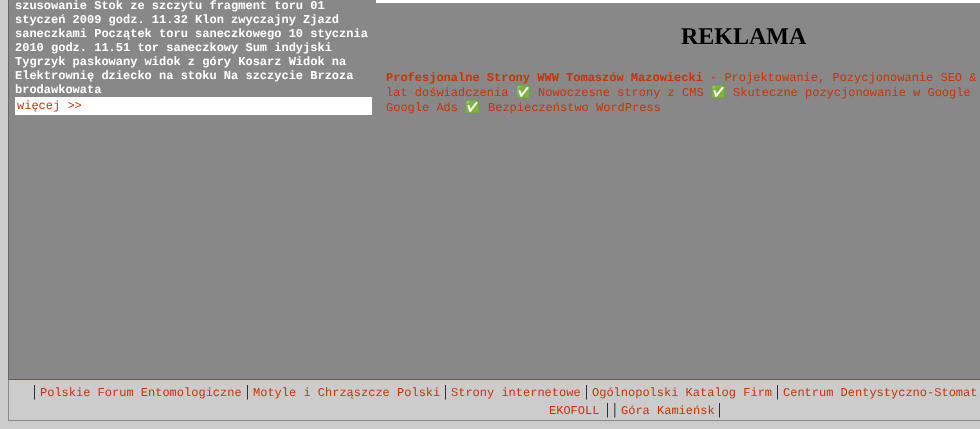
async function draw(canvas) {
	canvas.width = 980;
	canvas.height = 429;
	const c = canvas.getContext('2d');
	c.miterLimit = 4;
	c.fontKerning = 'normal';

	c.fillStyle = '#ccc';
	c.fillRect(0, 0, 980, 429);
	for (const [x, y, w, h, color] of [
		[9, 0, 971, 379, '#888'],
		[8, 379, 972, 1, '#c30'],
		[8, 0, 1, 380, '#666'],
	]) {
		c.fillStyle = color;
		c.fillRect(x, y, w, h);
	}
	c.font = 'bold 12px Liberation Mono';
	c.fillStyle = '#fff';
	for (const [text, x, y] of [
		['szusowanie Stok ze szczytu fragment toru 01', 15, 9],
		['styczeń 2009 godz. 11.32 Klon zwyczajny Zjazd', 15, 23],
		['saneczkami Początek toru saneczkowego 10 stycznia', 15, 37],
		['2010 godz. 11.51 tor saneczkowy Sum indyjski', 15, 51],
		['Tygrzyk paskowany widok z góry Kosarz Widok na', 15, 65],
		['Elektrownię dziecko na stoku Na szczycie Brzoza', 15, 79],
		['brodawkowata', 15, 93],
	]) {
		c.fillText(text, x, y);
	}
	c.fillRect(15, 97, 357, 18);
	c.font = '12px Liberation Mono';
	c.fillStyle = '#c30';
	c.fillText('więcej >>', 17, 109);
	c.fillStyle = '#fff';
	c.fillRect(376, 0, 604, 3);
	c.font = 'bold 24px Liberation Serif';
	c.fillStyle = '#000';
	c.fillText('REKLAMA', 681, 44);
	c.font = 'bold 12px Liberation Mono';
	c.fillStyle = '#c30';
	c.fillText('Profesjonalne Strony WWW Tomaszów Mazowiecki', 386, 81);
	c.font = '12px Liberation Mono';
	c.fillText('- Projektowanie, Pozycjonowanie SEO &', 710, 81);
	c.fillText('lat doświadczenia', 386, 96);
	c.font = '12px Noto Color Emoji';
	c.fillText('✅', 516, 96);
	c.font = '12px Liberation Mono';
	c.fillText('Nowoczesne strony z CMS', 538, 96);
	c.font = '12px Noto Color Emoji';
	c.fillText('✅', 711, 96);
	c.font = '12px Liberation Mono';
	c.fillText('Skuteczne pozycjonowanie w Google', 733, 96);
	c.fillText('Google Ads', 386, 111);
	c.font = '12px Noto Color Emoji';
	c.fillText('✅', 465, 111);
	c.font = '12px Liberation Mono';
	c.fillText('Bezpieczeństwo WordPress', 488, 111);
	c.fillStyle = '#888';
	c.fillRect(8, 420, 972, 1);
	c.fillRect(8, 380, 1, 41);
	c.font = '16px Liberation Serif';
	c.fillStyle = '#000';
	c.fillText('|', 33, 396);
	c.font = '12px Liberation Mono';
	c.fillStyle = '#c30';
	c.fillText('Polskie Forum Entomologiczne', 40, 396);
	c.font = '16px Liberation Serif';
	c.fillStyle = '#000';
	c.fillText('|', 246, 396);
	c.font = '12px Liberation Mono';
	c.fillStyle = '#c30';
	c.fillText('Motyle i Chrząszcze Polski', 253, 396);
	c.font = '16px Liberation Serif';
	c.fillStyle = '#000';
	c.fillText('|', 444, 396);
	c.font = '12px Liberation Mono';
	c.fillStyle = '#c30';
	c.fillText('Strony internetowe', 451, 396);
	c.font = '16px Liberation Serif';
	c.fillStyle = '#000';
	c.fillText('|', 585, 396);
	c.font = '12px Liberation Mono';
	c.fillStyle = '#c30';
	c.fillText('Ogólnopolski Katalog Firm', 592, 396);
	c.font = '16px Liberation Serif';
	c.fillStyle = '#000';
	c.fillText('|', 776, 396);
	c.font = '12px Liberation Mono';
	c.fillStyle = '#c30';
	c.fillText('Centrum Dentystyczno-Stomat', 783, 396);
	c.fillText('EKOFOLL', 549, 414);
	c.font = '16px Liberation Serif';
	c.fillStyle = '#000';
	c.fillText('| |', 606, 414);
	c.font = '12px Liberation Mono';
	c.fillStyle = '#c30';
	c.fillText('Góra Kamieńsk', 621, 414);
	c.font = '16px Liberation Serif';
	c.fillStyle = '#000';
	c.fillText('|', 718, 414);
}

draw(document.querySelector('canvas'));
